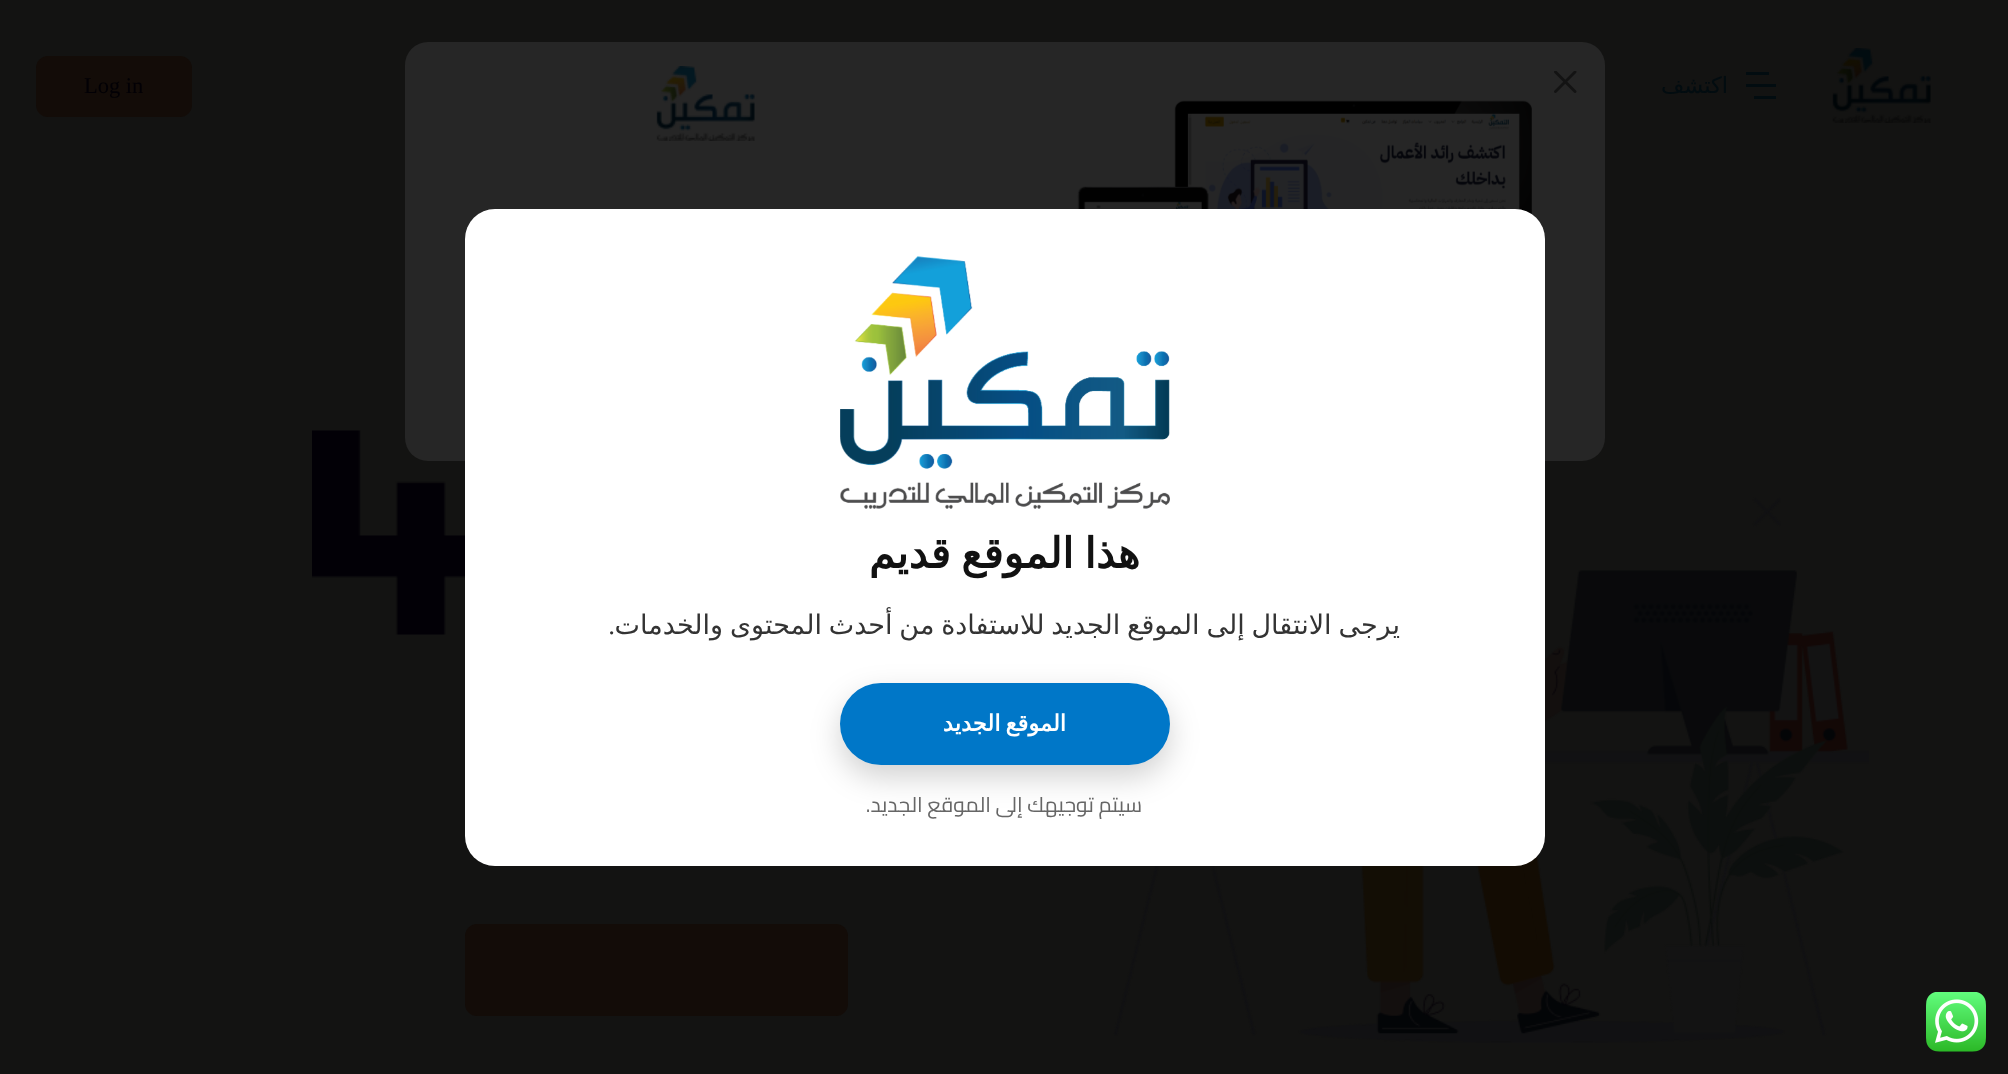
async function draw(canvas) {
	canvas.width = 2008;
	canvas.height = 1074;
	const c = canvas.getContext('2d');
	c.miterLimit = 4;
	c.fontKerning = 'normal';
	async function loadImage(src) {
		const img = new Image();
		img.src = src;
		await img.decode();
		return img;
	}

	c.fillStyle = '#131312';
	c.fillRect(0, 0, 2008, 1074);
	c.drawImage(await loadImage('img6.png'), 312, 430, 153, 205);
	c.fillStyle = '#262626';
	c.beginPath();
	c.roundRect(405, 42, 1200, 419, 23);
	c.fill();
	c.drawImage(await loadImage('img1.png'), 1554, 71, 23, 22);
	c.drawImage(await loadImage('img2.png'), 1077, 100, 455, 115);
	c.drawImage(await loadImage('img3.png'), 656, 66, 99, 75);
	c.drawImage(await loadImage('img4.png'), 1832, 48, 99, 75);
	for (const [x, y, w, h, color] of [
		[1746, 84, 30, 3, '#020c10'],
		[1746, 72, 23, 3, '#020c10'],
		[1754, 96, 22, 3, '#020c10'],
	]) {
		c.fillStyle = color;
		c.fillRect(x, y, w, h);
	}
	c.direction = 'rtl';
	c.font = '22.5px DejaVu Sans';
	c.fillText('اكتشف', 1728, 93);
	c.fillStyle = '#130c08';
	c.beginPath();
	c.roundRect(36, 56, 156, 61, 12);
	c.fill();
	c.direction = 'ltr';
	c.font = '22.5px Liberation Serif';
	c.fillStyle = '#020005';
	c.fillText('Log in', 84, 93);
	c.drawImage(await loadImage('img5.png'), 1113, 497, 756, 546);
	c.fillStyle = '#130c08';
	c.beginPath();
	c.roundRect(465, 924, 383, 92, 12);
	c.fill();
	c.fillStyle = '#fff';
	c.beginPath();
	c.roundRect(465, 209, 1080, 657, 30);
	c.fill();
	c.drawImage(await loadImage('img7.png'), 840, 256, 330, 253);
	c.wordSpacing = '-3px';
	c.direction = 'rtl';
	c.font = 'bold 42px DejaVu Sans';
	c.fillStyle = '#111';
	c.fillText('هذا الموقع قديم', 1140, 568);
	c.wordSpacing = '-1.75px';
	c.font = '27px DejaVu Sans';
	c.fillStyle = '#333';
	c.fillText('يرجى الانتقال إلى الموقع الجديد للاستفادة من أحدث المحتوى والخدمات', 1400, 634);
	c.wordSpacing = '0px';
	c.font = '27px Liberation Serif';
	c.fillText('.', 615, 634);
	c.fillStyle = '#0000002e';
	c.filter = 'blur(15px)';
	c.beginPath();
	c.roundRect(840, 695, 330, 82, 41);
	c.fill();
	c.filter = 'none';
	c.fillStyle = '#0077c8';
	c.beginPath();
	c.roundRect(840, 683, 330, 82, 41);
	c.fill();
	c.wordSpacing = '-2px';
	c.font = 'bold 22.5px DejaVu Sans';
	c.fillStyle = '#fff';
	c.fillText('الموقع الجديد', 1066, 731);
	c.wordSpacing = '0px';
	c.font = '21px Cairo';
	c.fillStyle = '#666';
	c.fillText('سيتم توجيهك إلى الموقع الجديد.', 1142, 812);
	c.drawImage(await loadImage('img8.png'), 1926, 992, 60, 60);
}

draw(document.querySelector('canvas'));
